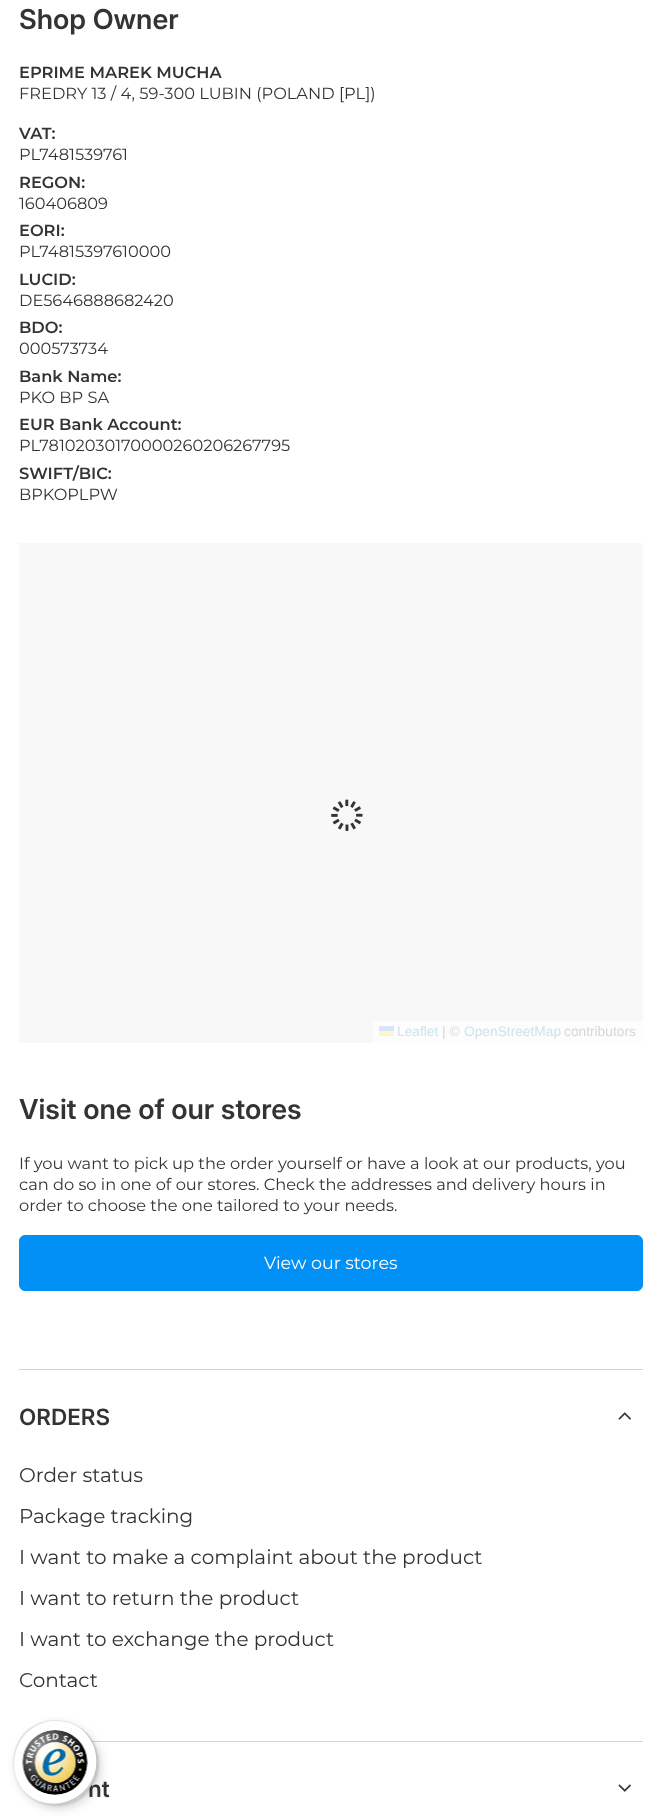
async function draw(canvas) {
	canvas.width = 661;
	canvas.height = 1817;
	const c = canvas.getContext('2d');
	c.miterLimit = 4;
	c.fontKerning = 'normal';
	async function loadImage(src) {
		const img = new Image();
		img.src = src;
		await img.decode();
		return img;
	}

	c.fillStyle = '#fff';
	c.fillRect(0, 0, 661, 1817);
	c.font = '600 27.5px Inter';
	c.fillStyle = '#333';
	c.fillText('Shop Owner', 19, 29);
	c.font = '600 16.25px Montserrat';
	c.fillText('EPRIME MAREK MUCHA', 19, 78);
	c.font = '16.25px Montserrat';
	c.fillText('FREDRY 13 / 4, 59-300 LUBIN (POLAND [PL])', 19, 99);
	c.font = '600 16.25px Montserrat';
	c.fillText('VAT:', 19, 139);
	c.font = '16.25px Montserrat';
	c.fillText('PL7481539761', 19, 160);
	c.font = '600 16.25px Montserrat';
	c.fillText('REGON:', 19, 188);
	c.font = '16.25px Montserrat';
	c.fillText('160406809', 19, 209);
	c.font = '600 16.25px Montserrat';
	c.fillText('EORI:', 19, 236);
	c.font = '16.25px Montserrat';
	c.fillText('PL74815397610000', 19, 257);
	c.font = '600 16.25px Montserrat';
	c.fillText('LUCID:', 19, 285);
	c.font = '16.25px Montserrat';
	c.fillText('DE5646888682420', 19, 306);
	c.font = '600 16.25px Montserrat';
	c.fillText('BDO:', 19, 333);
	c.font = '16.25px Montserrat';
	c.fillText('000573734', 19, 354);
	c.font = '600 16.25px Montserrat';
	c.fillText('Bank Name:', 19, 382);
	c.font = '16.25px Montserrat';
	c.fillText('PKO BP SA', 19, 403);
	c.font = '600 16.25px Montserrat';
	c.fillText('EUR Bank Account:', 19, 430);
	c.font = '16.25px Montserrat';
	c.fillText('PL78102030170000260206267795', 19, 451);
	c.font = '600 16.25px Montserrat';
	c.fillText('SWIFT/BIC:', 19, 479);
	c.font = '16.25px Montserrat';
	c.fillText('BPKOPLPW', 19, 500);
	c.fillStyle = '#f8f8f8';
	c.fillRect(19, 543, 624, 500);
	c.drawImage(await loadImage('img1.png'), 331, 799, 32, 32);
	c.fillStyle = '#fdfdfd';
	c.fillRect(373, 1021, 270, 22);
	c.font = '13.75px Liberation Sans';
	c.fillStyle = '#cce4ee';
	c.fillText('Leaflet', 397, 1036);
	for (const [x, y, w, h, color] of [
		[379, 1026, 15, 5, '#dbe5f9'],
		[379, 1031, 15, 4, '#fff7cc'],
		[379, 1035, 15, 1, '#f9f2cc'],
	]) {
		c.fillStyle = color;
		c.fillRect(x, y, w, h);
	}
	c.fillStyle = '#d6d6d6';
	c.fillText('| ©', 442, 1036);
	c.fillStyle = '#cce4ee';
	c.fillText('OpenStreetMap', 464, 1036);
	c.fillStyle = '#d6d6d6';
	c.fillText('contributors', 564, 1036);
	c.font = '600 27.5px Inter';
	c.fillStyle = '#333';
	c.fillText('Visit one of our stores', 19, 1119);
	c.font = '16.25px Montserrat';
	for (const [text, x, y] of [
		['If you want to pick up the order yourself or have a look at our products, you', 19, 1169],
		['can do so in one of our stores. Check the addresses and delivery hours in', 19, 1190],
		['order to choose the one tailored to your needs.', 19, 1211],
	]) {
		c.fillText(text, x, y);
	}
	c.fillStyle = '#0090f6';
	c.beginPath();
	c.roundRect(19.5, 1235.5, 623, 55, 5.5);
	c.fill();
	c.strokeStyle = '#0090f6';
	c.stroke();
	c.font = '17.5px Montserrat';
	c.fillStyle = '#fff';
	c.fillText('View our stores', 264, 1269);
	c.fillStyle = '#d1d5db';
	c.fillRect(19, 1369, 624, 1);
	c.fillRect(92, 1741, 551, 1);
	c.font = '600 22.5px "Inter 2"';
	c.fillStyle = '#333';
	c.fillText('ORDERS', 19, 1425);
	c.drawImage(await loadImage('img2.png'), 618, 1412, 13, 8);
	c.font = '20px Montserrat';
	for (const [text, x, y] of [
		['Order status', 19, 1482],
		['Package tracking', 19, 1523],
		['I want to make a complaint about the product', 19, 1564],
		['I want to return the product', 19, 1605],
		['I want to exchange the product', 19, 1646],
		['Contact', 19, 1687],
	]) {
		c.fillText(text, x, y);
	}
	c.font = '600 22.5px "Inter 2"';
	c.fillText('nt', 88, 1797);
	c.drawImage(await loadImage('img3.png'), 618, 1784, 13, 8);
	c.fillStyle = '#00000026';
	c.filter = 'blur(5px)';
	c.beginPath();
	c.roundRect(16, 1724, 85, 85, 42.5);
	c.fill();
	c.filter = 'none';
	c.filter = 'blur(1px)';
	c.beginPath();
	c.roundRect(14, 1721, 85, 85, 42.5);
	c.fill();
	c.filter = 'none';
	c.fillStyle = '#fff';
	c.beginPath();
	c.arc(55.5, 1762.5, 42.5, 0, 2 * Math.PI);
	c.fill();
	c.fillStyle = '#0000001a';
	c.beginPath();
	c.moveTo(56, 1721);
	c.bezierCurveTo(69, 1721, 80, 1726, 88, 1735);
	c.bezierCurveTo(72, 1716, 43, 1715, 25, 1732);
	c.bezierCurveTo(10, 1748, 9, 1774, 24, 1791);
	c.bezierCurveTo(2, 1764, 20, 1721, 56, 1721);
	c.closePath();
	c.fill();
	c.fillStyle = '#00000033';
	c.beginPath();
	c.moveTo(34, 1799);
	c.bezierCurveTo(69, 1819, 111, 1783, 94, 1745);
	c.bezierCurveTo(91, 1737, 84, 1729, 75, 1725);
	c.bezierCurveTo(83, 1729, 89, 1736, 93, 1745);
	c.bezierCurveTo(108, 1782, 69, 1817, 34, 1799);
	c.closePath();
	c.fill();
	c.fillStyle = '#32323233';
	c.beginPath();
	c.moveTo(27, 1794);
	c.bezierCurveTo(44, 1809, 70, 1808, 86, 1793);
	c.bezierCurveTo(103, 1775, 102, 1746, 83, 1730);
	c.bezierCurveTo(90, 1736, 94, 1744, 96, 1753);
	c.bezierCurveTo(104, 1792, 57, 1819, 27, 1794);
	c.closePath();
	c.fill();
	c.fillStyle = '#ffffff4d';
	c.beginPath();
	c.moveTo(27, 1794);
	c.bezierCurveTo(44, 1809, 70, 1808, 86, 1793);
	c.bezierCurveTo(103, 1775, 102, 1746, 83, 1730);
	c.bezierCurveTo(90, 1736, 94, 1744, 96, 1753);
	c.bezierCurveTo(104, 1792, 57, 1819, 27, 1794);
	c.closePath();
	c.fill();
	c.drawImage(await loadImage('img4.png'), 22, 1730, 66, 65);
}

draw(document.querySelector('canvas'));
